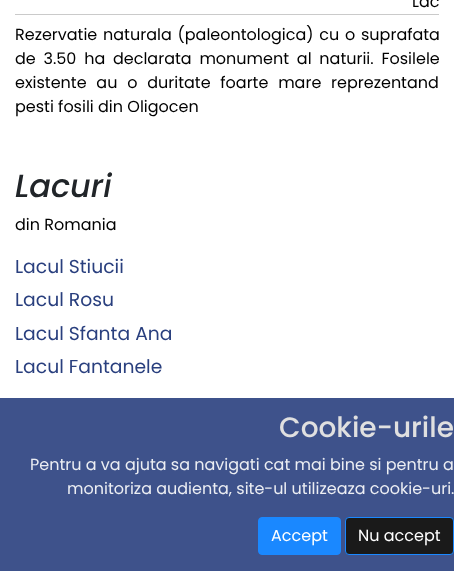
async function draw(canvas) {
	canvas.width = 454;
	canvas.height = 571;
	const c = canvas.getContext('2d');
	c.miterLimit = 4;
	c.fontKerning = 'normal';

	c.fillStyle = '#fff';
	c.fillRect(0, 0, 454, 571);
	c.fillStyle = '#cacaca';
	c.fillRect(15, 14, 424, 1);
	c.font = '16px Poppins';
	c.fillStyle = '#000';
	c.fillText('Lac', 412, 7);
	c.wordSpacing = '1.5px';
	c.fillText('Rezervatie naturala (paleontologica) cu o suprafata', 15, 40);
	c.wordSpacing = '3.5px';
	c.fillText('de 3.50 ha declarata monument al naturii. Fosilele', 15, 64);
	c.wordSpacing = '5.5px';
	c.fillText('existente au o duritate foarte mare reprezentand', 15, 88);
	c.wordSpacing = '0px';
	c.fillText('pesti fosili din Oligocen', 15, 112);
	c.font = 'italic 500 32px Poppins';
	c.fillStyle = '#212529';
	c.fillText('Lacuri', 15, 197);
	c.font = '16px Poppins';
	c.fillStyle = '#000';
	c.fillText('din Romania', 15, 230);
	c.font = '18.75px Poppins';
	c.fillStyle = '#293f7e';
	for (const [text, x, y] of [
		['Lacul Stiucii', 15, 273],
		['Lacul Rosu', 15, 306],
		['Lacul Sfanta Ana', 15, 340],
		['Lacul Fantanele', 15, 373],
	]) {
		c.fillText(text, x, y);
	}
	c.fillStyle = '#293f7ee6';
	c.fillRect(0, 398, 454, 173);
	c.font = '500 28px Poppins';
	c.fillStyle = '#e0e0e0';
	c.fillText('Cookie-urile', 279, 437);
	c.font = '16px Poppins';
	c.fillStyle = '#eceef3';
	c.fillText('Pentru a va ajuta sa navigati cat mai bine si pentru a', 30, 470);
	c.fillText('monitoriza audienta, site-ul utilizeaza cookie-uri.', 67, 494);
	c.fillStyle = '#1a88ff';
	c.beginPath();
	c.roundRect(258.5, 517.5, 82, 37, 3.5);
	c.fill();
	c.strokeStyle = '#1a88ff';
	c.stroke();
	c.fillStyle = '#fff';
	c.fillText('Accept', 271, 541);
	c.fillStyle = '#1a1a1a';
	c.beginPath();
	c.roundRect(345.5, 517.5, 108, 37, 3.5);
	c.fill();
	c.stroke();
	c.fillStyle = '#fff';
	c.fillText('Nu accept', 358, 541);
}

draw(document.querySelector('canvas'));
